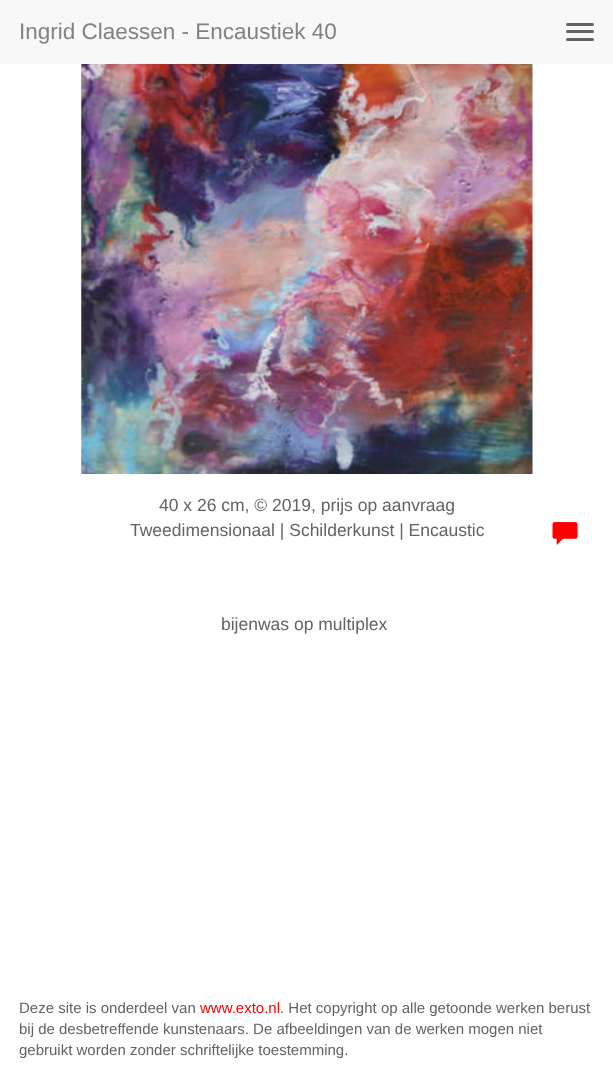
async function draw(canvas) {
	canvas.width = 613;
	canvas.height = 1079;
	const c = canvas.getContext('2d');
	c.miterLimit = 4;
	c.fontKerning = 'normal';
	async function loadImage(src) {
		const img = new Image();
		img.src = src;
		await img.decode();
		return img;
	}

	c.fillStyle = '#fff';
	c.fillRect(0, 0, 613, 1079);
	c.fillStyle = '#f8f8f8';
	c.fillRect(0, 0, 613, 64);
	c.font = '22.5px Liberation Sans';
	c.fillStyle = '#828181';
	c.fillText('Ingrid Claessen - Encaustiek 40', 19, 39);
	c.fillStyle = '#646363';
	c.beginPath();
	c.roundRect(566, 23, 28, 3, 1.5);
	c.fill();
	c.beginPath();
	c.roundRect(566, 30, 28, 3, 1.5);
	c.fill();
	c.beginPath();
	c.roundRect(566, 38, 28, 3, 1.5);
	c.fill();
	c.drawImage(await loadImage('img1.png'), 81, 64, 452, 410);
	c.font = '17.5px Liberation Sans';
	c.fillText('40 x 26 cm, © 2019, prijs op aanvraag', 159, 511);
	c.fillText('Tweedimensionaal | Schilderkunst | Encaustic', 130, 536);
	c.drawImage(await loadImage('img2.png'), 552, 522, 26, 23);
	c.fillText('bijenwas op multiplex', 221, 630);
	c.font = '15px Liberation Sans';
	c.fillText('Deze site is onderdeel van', 19, 1013);
	c.fillStyle = '#f00';
	c.fillText('www.exto.nl', 200, 1013);
	c.fillStyle = '#646363';
	for (const [text, x, y] of [
		['. Het copyright op alle getoonde werken berust', 280, 1013],
		['bij de desbetreffende kunstenaars. De afbeeldingen van de werken mogen niet', 19, 1034],
		['gebruikt worden zonder schriftelijke toestemming.', 19, 1055],
	]) {
		c.fillText(text, x, y);
	}
}

draw(document.querySelector('canvas'));
